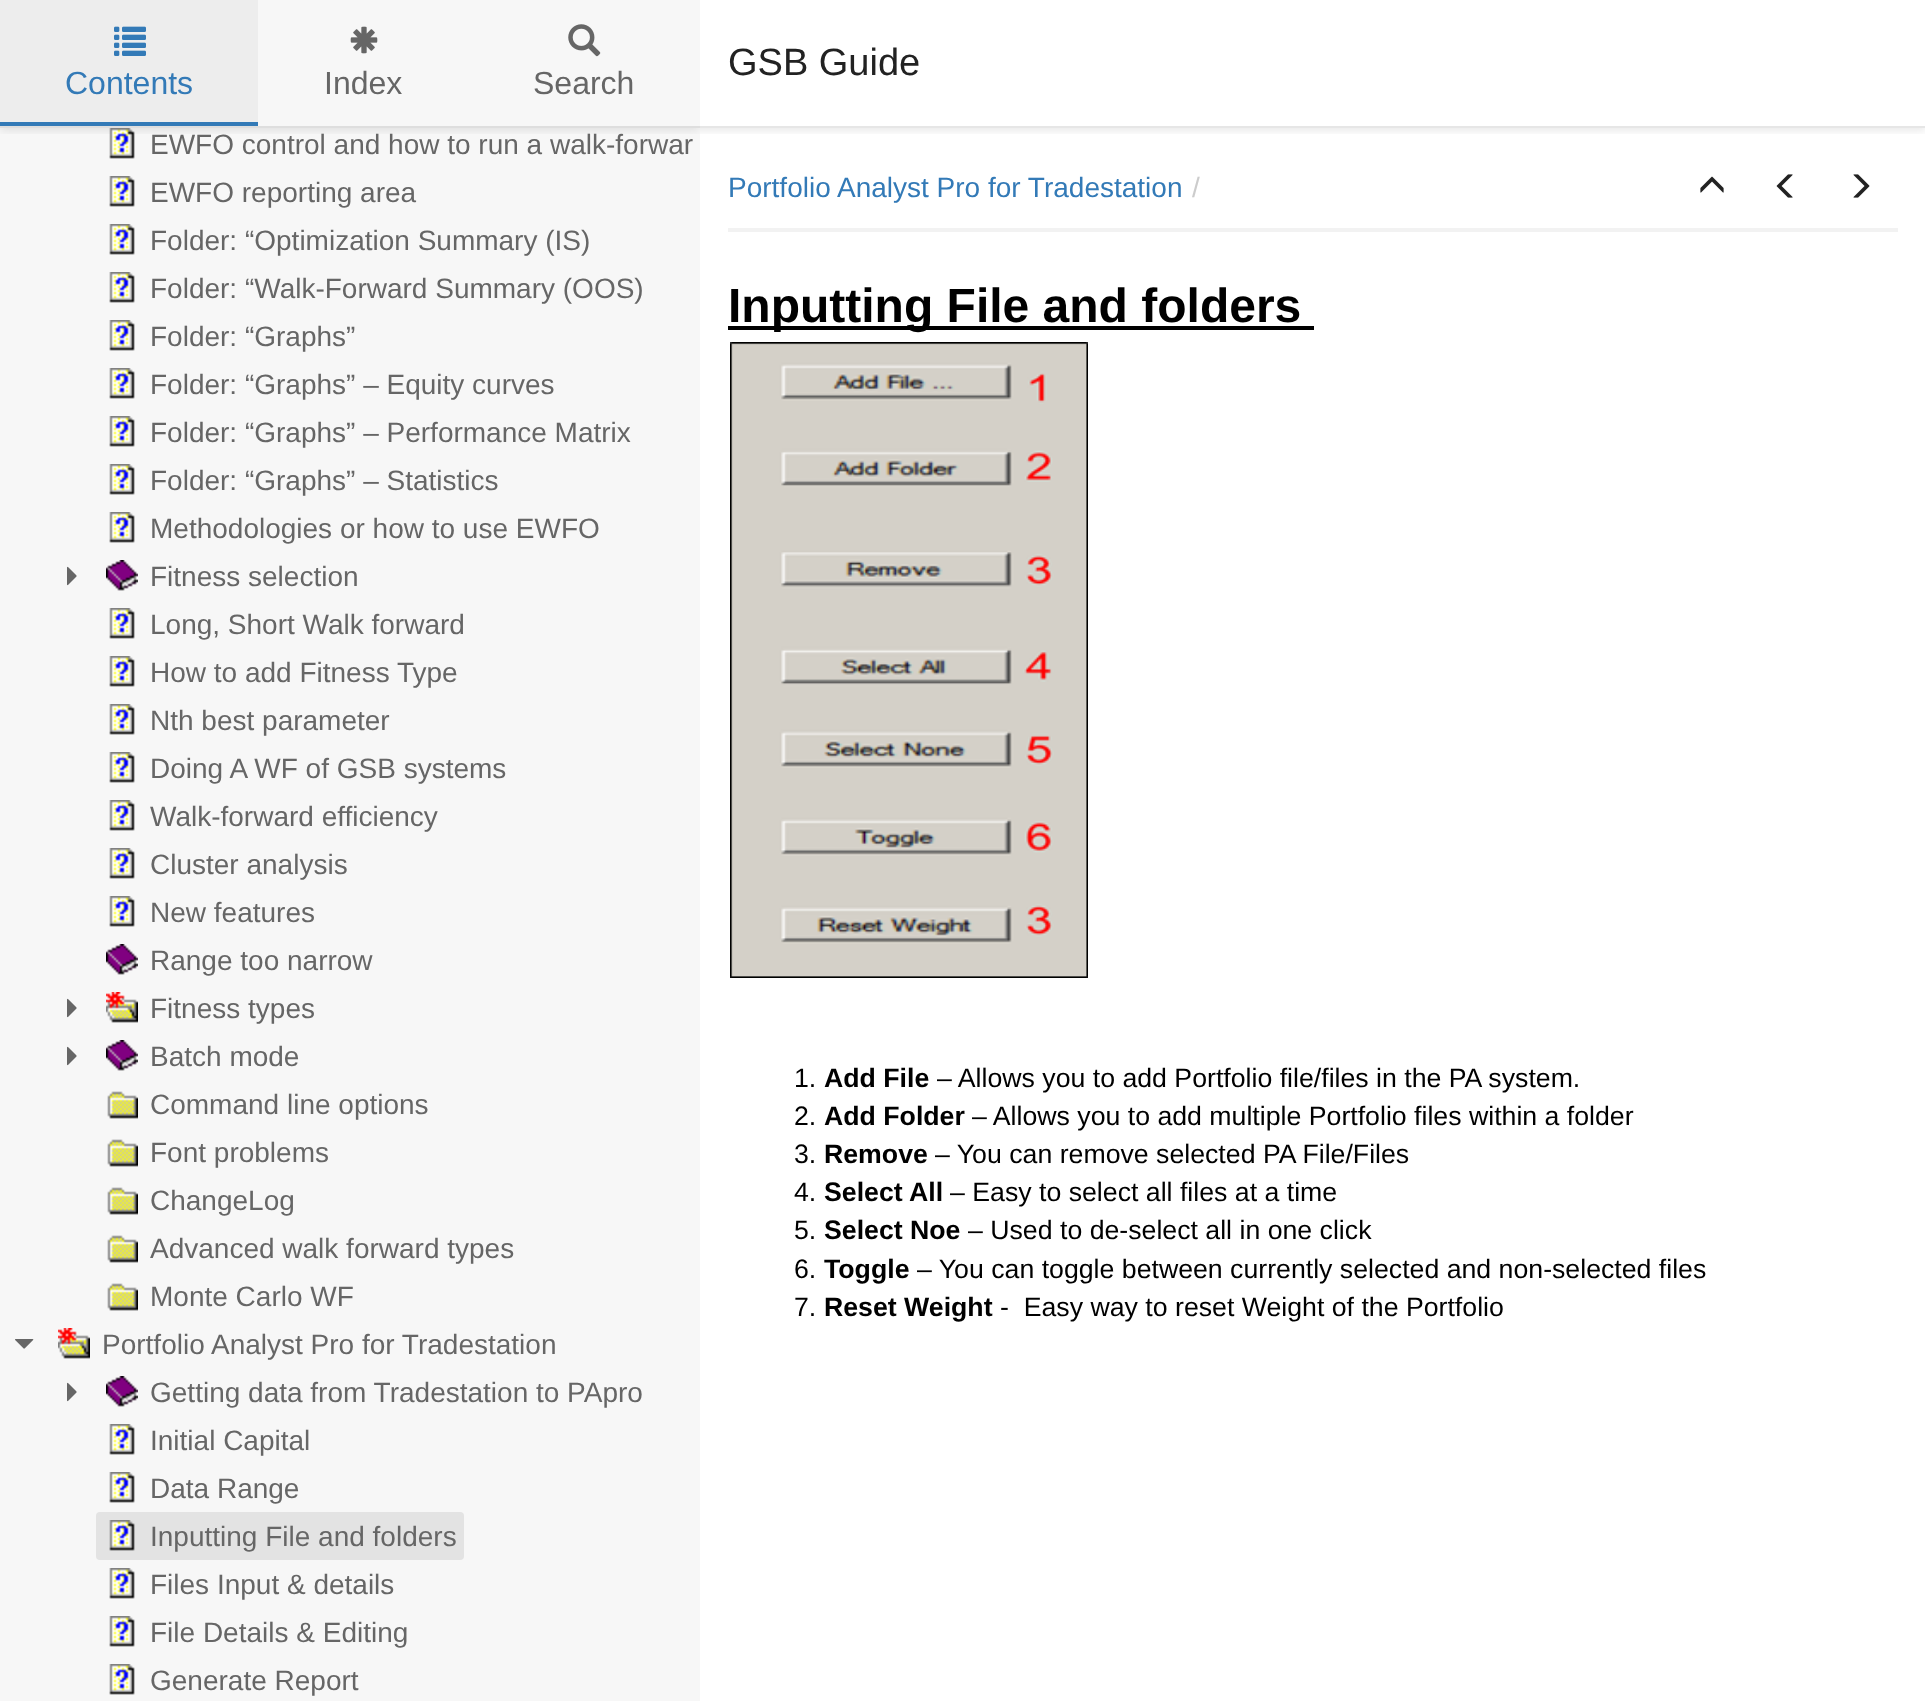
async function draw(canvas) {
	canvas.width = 1925;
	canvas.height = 1701;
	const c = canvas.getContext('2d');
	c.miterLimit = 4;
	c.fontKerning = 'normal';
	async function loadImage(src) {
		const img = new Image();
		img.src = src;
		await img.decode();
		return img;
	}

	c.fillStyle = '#fff';
	c.fillRect(0, 0, 1925, 1701);
	c.save();
	c.beginPath();
	c.rect(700, 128, 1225, 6);
	c.clip();
	c.fillStyle = '#0000001a';
	c.filter = 'blur(5px)';
	c.beginPath();
	c.rect(0, 2, 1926, 128);
	c.fill();
	c.filter = 'none';
	c.restore();
	c.fillStyle = '#e6e6e6';
	c.fillRect(700, 126, 1225, 2);
	c.font = '38px Liberation Sans';
	c.fillStyle = '#222';
	c.fillText('GSB Guide', 728, 75);
	c.fillStyle = '#f7f7f7';
	c.fillRect(0, 0, 700, 1701);
	c.save();
	c.beginPath();
	c.rect(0, 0, 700, 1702);
	c.clip();
	c.beginPath();
	c.rect(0, 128, 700, 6);
	c.clip();
	c.fillStyle = '#0000001a';
	c.filter = 'blur(5px)';
	c.beginPath();
	c.rect(0, 2, 700, 128);
	c.fill();
	c.filter = 'none';
	c.restore();
	c.fillStyle = '#dedede';
	c.fillRect(0, 126, 700, 2);
	c.fillStyle = '#ededed';
	c.fillRect(0, 0, 258, 122);
	c.drawImage(await loadImage('img1.png'), 114, 26, 32, 30);
	c.font = '32px Liberation Sans';
	c.fillStyle = '#337ab7';
	c.fillText('Contents', 65, 94);
	c.fillRect(0, 122, 258, 4);
	c.drawImage(await loadImage('img2.png'), 350, 26, 28, 28);
	c.fillStyle = '#666';
	c.fillText('Index', 324, 94);
	c.drawImage(await loadImage('img3.png'), 568, 24, 33, 33);
	c.fillText('Search', 533, 94);
	c.drawImage(await loadImage('img4.png'), 109, 128, 26, 31);
	c.font = '28px Liberation Sans';
	c.fillText('EWFO control and how to run a walk-forwar', 150, 154);
	c.drawImage(await loadImage('img5.png'), 109, 176, 26, 31);
	c.fillText('EWFO reporting area', 150, 202);
	c.drawImage(await loadImage('img5.png'), 109, 224, 26, 31);
	c.fillText('Folder: “Optimization Summary (IS)', 150, 250);
	c.drawImage(await loadImage('img5.png'), 109, 272, 26, 31);
	c.fillText('Folder: “Walk-Forward Summary (OOS)', 150, 298);
	c.drawImage(await loadImage('img5.png'), 109, 320, 26, 31);
	c.fillText('Folder: “Graphs”', 150, 346);
	c.drawImage(await loadImage('img5.png'), 109, 368, 26, 31);
	c.fillText('Folder: “Graphs” – Equity curves', 150, 394);
	c.drawImage(await loadImage('img5.png'), 109, 416, 26, 31);
	c.fillText('Folder: “Graphs” – Performance Matrix', 150, 442);
	c.drawImage(await loadImage('img5.png'), 109, 464, 26, 31);
	c.fillText('Folder: “Graphs” – Statistics', 150, 490);
	c.drawImage(await loadImage('img5.png'), 109, 512, 26, 31);
	c.fillText('Methodologies or how to use EWFO', 150, 538);
	c.drawImage(await loadImage('img6.png'), 67, 566, 10, 20);
	c.drawImage(await loadImage('img7.png'), 106, 560, 32, 31);
	c.fillText('Fitness selection', 150, 586);
	c.drawImage(await loadImage('img5.png'), 109, 608, 26, 31);
	c.fillText('Long, Short Walk forward', 150, 634);
	c.drawImage(await loadImage('img5.png'), 109, 656, 26, 31);
	c.fillText('How to add Fitness Type', 150, 682);
	c.drawImage(await loadImage('img5.png'), 109, 704, 26, 31);
	c.fillText('Nth best parameter', 150, 730);
	c.drawImage(await loadImage('img5.png'), 109, 752, 26, 31);
	c.fillText('Doing A WF of GSB systems', 150, 778);
	c.drawImage(await loadImage('img5.png'), 109, 800, 26, 31);
	c.fillText('Walk-forward efficiency', 150, 826);
	c.drawImage(await loadImage('img5.png'), 109, 848, 26, 31);
	c.fillText('Cluster analysis', 150, 874);
	c.drawImage(await loadImage('img5.png'), 109, 896, 26, 31);
	c.fillText('New features', 150, 922);
	c.drawImage(await loadImage('img7.png'), 106, 944, 32, 31);
	c.fillText('Range too narrow', 150, 970);
	c.drawImage(await loadImage('img6.png'), 67, 998, 10, 20);
	c.drawImage(await loadImage('img8.png'), 106, 992, 32, 31);
	c.fillText('Fitness types', 150, 1018);
	c.drawImage(await loadImage('img6.png'), 67, 1046, 10, 20);
	c.drawImage(await loadImage('img7.png'), 106, 1040, 32, 31);
	c.fillText('Batch mode', 150, 1066);
	c.drawImage(await loadImage('img9.png'), 107, 1091, 31, 28);
	c.fillText('Command line options', 150, 1114);
	c.drawImage(await loadImage('img9.png'), 107, 1139, 31, 28);
	c.fillText('Font problems', 150, 1162);
	c.drawImage(await loadImage('img9.png'), 107, 1187, 31, 28);
	c.fillText('ChangeLog', 150, 1210);
	c.drawImage(await loadImage('img9.png'), 107, 1235, 31, 28);
	c.fillText('Advanced walk forward types', 150, 1258);
	c.drawImage(await loadImage('img9.png'), 107, 1283, 31, 28);
	c.fillText('Monte Carlo WF', 150, 1306);
	c.drawImage(await loadImage('img10.png'), 15, 1339, 19, 10);
	c.drawImage(await loadImage('img8.png'), 58, 1328, 32, 31);
	c.fillText('Portfolio Analyst Pro for Tradestation', 102, 1354);
	c.drawImage(await loadImage('img6.png'), 67, 1382, 10, 20);
	c.drawImage(await loadImage('img7.png'), 106, 1376, 32, 31);
	c.fillText('Getting data from Tradestation to PApro', 150, 1402);
	c.drawImage(await loadImage('img5.png'), 109, 1424, 26, 31);
	c.fillText('Initial Capital', 150, 1450);
	c.drawImage(await loadImage('img5.png'), 109, 1472, 26, 31);
	c.fillText('Data Range', 150, 1498);
	c.fillStyle = '#e3e3e3';
	c.beginPath();
	c.roundRect(96, 1512, 368, 48, 4);
	c.fill();
	c.drawImage(await loadImage('img11.png'), 109, 1520, 26, 31);
	c.fillStyle = '#666';
	c.fillText('Inputting File and folders', 150, 1546);
	c.drawImage(await loadImage('img5.png'), 109, 1568, 26, 31);
	c.fillText('Files Input & details', 150, 1594);
	c.drawImage(await loadImage('img5.png'), 109, 1616, 26, 31);
	c.fillText('File Details & Editing', 150, 1642);
	c.drawImage(await loadImage('img5.png'), 109, 1664, 26, 31);
	c.fillText('Generate Report', 150, 1690);
	c.fillStyle = '#f2f2f2';
	c.fillRect(728, 228, 1170, 4);
	c.fillStyle = '#337ab7';
	c.fillText('Portfolio Analyst Pro for Tradestation', 728, 197);
	c.fillStyle = '#ccc';
	c.fillText('/', 1192, 197);
	c.drawImage(await loadImage('img12.png'), 1700, 176, 24, 17);
	c.drawImage(await loadImage('img13.png'), 1776, 174, 17, 24);
	c.drawImage(await loadImage('img14.png'), 1853, 174, 17, 24);
	c.fillStyle = '#000';
	c.fillRect(728, 326, 586, 4);
	c.font = 'bold 48px Liberation Sans';
	c.fillText('Inputting File and folders', 728, 322);
	c.drawImage(await loadImage('img15.png'), 730, 342, 358, 636);
	c.font = '26.7px Liberation Sans';
	c.fillText('1.', 794, 1087);
	c.font = 'bold 26.7px Liberation Sans';
	c.fillText('Add File', 824, 1087);
	c.font = '26.7px Liberation Sans';
	c.fillText('– Allows you to add Portfolio file/files in the PA system.', 937, 1087);
	c.fillText('2.', 794, 1125);
	c.font = 'bold 26.7px Liberation Sans';
	c.fillText('Add Folder', 824, 1125);
	c.font = '26.7px Liberation Sans';
	c.fillText('– Allows you to add multiple Portfolio files within a folder', 972, 1125);
	c.fillText('3.', 794, 1163);
	c.font = 'bold 26.7px Liberation Sans';
	c.fillText('Remove', 824, 1163);
	c.font = '26.7px Liberation Sans';
	c.fillText('– You can remove selected PA File/Files', 935, 1163);
	c.fillText('4.', 794, 1201);
	c.font = 'bold 26.7px Liberation Sans';
	c.fillText('Select All', 824, 1201);
	c.font = '26.7px Liberation Sans';
	c.fillText('– Easy to select all files at a time', 950, 1201);
	c.fillText('5.', 794, 1239);
	c.font = 'bold 26.7px Liberation Sans';
	c.fillText('Select Noe', 824, 1239);
	c.font = '26.7px Liberation Sans';
	c.fillText('– Used to de-select all in one click', 968, 1239);
	c.fillText('6.', 794, 1278);
	c.font = 'bold 26.7px Liberation Sans';
	c.fillText('Toggle', 824, 1278);
	c.font = '26.7px Liberation Sans';
	c.fillText('– You can toggle between currently selected and non-selected files', 917, 1278);
	c.fillText('7.', 794, 1316);
	c.font = 'bold 26.7px Liberation Sans';
	c.fillText('Reset Weight', 824, 1316);
	c.font = '26.7px Liberation Sans';
	c.fillText('-  Easy way to reset Weight of the Portfolio', 1000, 1316);
}

draw(document.querySelector('canvas'));
